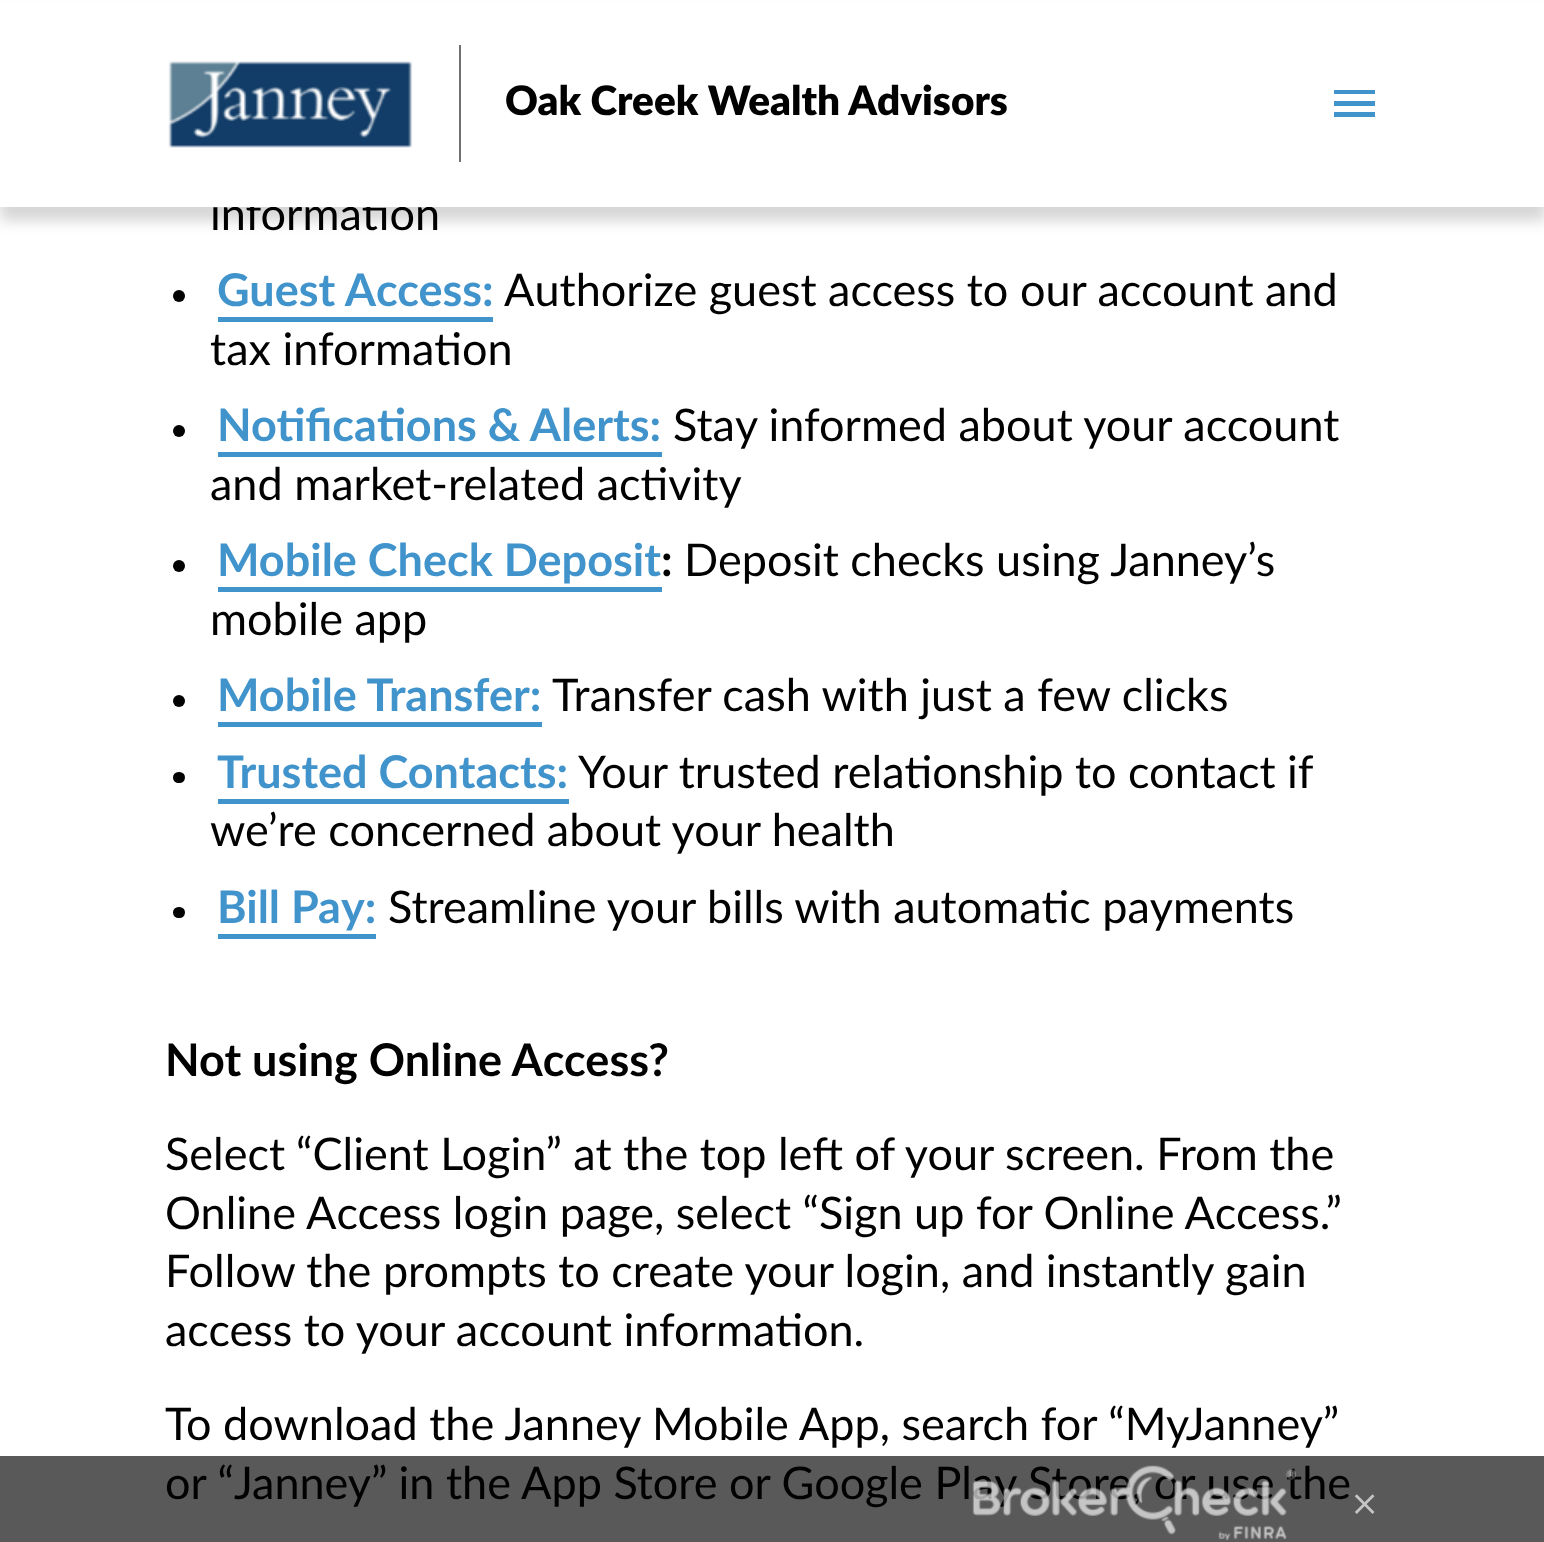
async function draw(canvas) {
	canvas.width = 1544;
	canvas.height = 1542;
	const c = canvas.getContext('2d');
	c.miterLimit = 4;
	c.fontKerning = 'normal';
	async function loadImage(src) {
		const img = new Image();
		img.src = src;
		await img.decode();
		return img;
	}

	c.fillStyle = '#fff';
	c.fillRect(0, 0, 1544, 1542);
	c.fillStyle = '#595959';
	c.fillRect(0, 1456, 1544, 86);
	c.fillStyle = '#00000029';
	c.filter = 'blur(7px)';
	c.beginPath();
	c.rect(0, 14, 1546, 207);
	c.fill();
	c.filter = 'none';
	c.font = '45px Lato';
	c.fillStyle = '#010101';
	c.fillText('information', 210, 230);
	c.fillStyle = '#fff';
	c.fillRect(0, 3, 1544, 204);
	c.drawImage(await loadImage('img1.png'), 168, 60, 245, 88);
	c.fillStyle = '#707070';
	c.fillRect(459, 45, 2, 117);
	c.font = '900 40.5px Lato';
	c.fillStyle = '#010101';
	c.fillText('Oak Creek Wealth Advisors', 505, 115);
	c.fillStyle = '#4193cb';
	c.beginPath();
	c.moveTo(1334, 90);
	c.lineTo(1375, 90);
	c.lineTo(1375, 94);
	c.lineTo(1334, 94);
	c.lineTo(1334, 90);
	c.moveTo(1334, 101);
	c.lineTo(1375, 101);
	c.lineTo(1375, 106);
	c.lineTo(1334, 106);
	c.lineTo(1334, 101);
	c.moveTo(1334, 112);
	c.lineTo(1375, 112);
	c.lineTo(1375, 117);
	c.lineTo(1334, 117);
	c.closePath();
	c.fill();
	c.fillStyle = '#010101';
	c.beginPath();
	c.arc(179, 296, 6, 0, 2 * Math.PI);
	c.fill();
	c.font = 'bold 45px Lato';
	c.fillStyle = '#4193cb';
	c.fillText('Guest Access:', 217, 306);
	c.fillRect(218, 317, 275, 5);
	c.font = '45px Lato';
	c.fillStyle = '#010101';
	c.fillText('Authorize guest access to our account and', 504, 306);
	c.fillText('tax information', 210, 365);
	c.beginPath();
	c.arc(179, 431, 6, 0, 2 * Math.PI);
	c.fill();
	c.font = 'bold 45px Lato';
	c.fillStyle = '#4193cb';
	c.fillText('Notifications & Alerts:', 217, 441);
	c.fillRect(218, 452, 444, 5);
	c.font = '45px Lato';
	c.fillStyle = '#010101';
	c.fillText('Stay informed about your account', 673, 441);
	c.fillText('and market-related activity', 210, 500);
	c.beginPath();
	c.arc(179, 566, 6, 0, 2 * Math.PI);
	c.fill();
	c.font = 'bold 45px Lato';
	c.fillStyle = '#4193cb';
	c.fillText('Mobile Check Deposit', 217, 576);
	c.fillRect(218, 587, 444, 5);
	c.fillStyle = '#010101';
	c.fillText(':', 661, 576);
	c.font = '45px Lato';
	c.fillText('Deposit checks using Janney’s', 684, 576);
	c.fillText('mobile app', 210, 635);
	c.beginPath();
	c.arc(179, 701, 6, 0, 2 * Math.PI);
	c.fill();
	c.font = 'bold 45px Lato';
	c.fillStyle = '#4193cb';
	c.fillText('Mobile Transfer:', 217, 711);
	c.fillRect(218, 722, 324, 5);
	c.font = '45px Lato';
	c.fillStyle = '#010101';
	c.fillText('Transfer cash with just a few clicks', 552, 711);
	c.beginPath();
	c.roundRect(173, 772, 12, 11, 5.5);
	c.fill();
	c.font = 'bold 45px Lato';
	c.fillStyle = '#4193cb';
	c.fillText('Trusted Contacts:', 217, 788);
	c.fillRect(218, 799, 351, 5);
	c.font = '45px Lato';
	c.fillStyle = '#010101';
	c.fillText('Your trusted relationship to contact if', 578, 788);
	c.fillText('we’re concerned about your health', 210, 846);
	c.beginPath();
	c.roundRect(173, 907, 12, 11, 5.5);
	c.fill();
	c.font = 'bold 45px Lato';
	c.fillStyle = '#4193cb';
	c.fillText('Bill Pay:', 217, 923);
	c.fillRect(218, 934, 158, 5);
	c.font = '45px Lato';
	c.fillStyle = '#010101';
	c.fillText('Streamline your bills with automatic payments', 388, 923);
	c.font = 'bold 45px Lato';
	c.fillText('Not using Online Access?', 165, 1076);
	c.font = '45px Lato';
	for (const [text, x, y] of [
		['Select', 165, 1170],
		['“Client Login” at the top left of your screen. From the', 296, 1170],
		['Online Access login page, select “Sign up for Online Access.”', 165, 1229],
		['Follow the prompts to create your login, and instantly gain', 165, 1287],
		['access to your account information.', 165, 1346],
		['To download the Janney Mobile App, search for “MyJanney”', 165, 1440],
		['or “Janney” in the App Store or Google Play Store, or use the', 165, 1499],
	]) {
		c.fillText(text, x, y);
	}
	c.drawImage(await loadImage('img2.png'), 972, 1465, 324, 76);
	c.drawImage(await loadImage('img3.png'), 1354, 1494, 21, 20);
}

draw(document.querySelector('canvas'));
